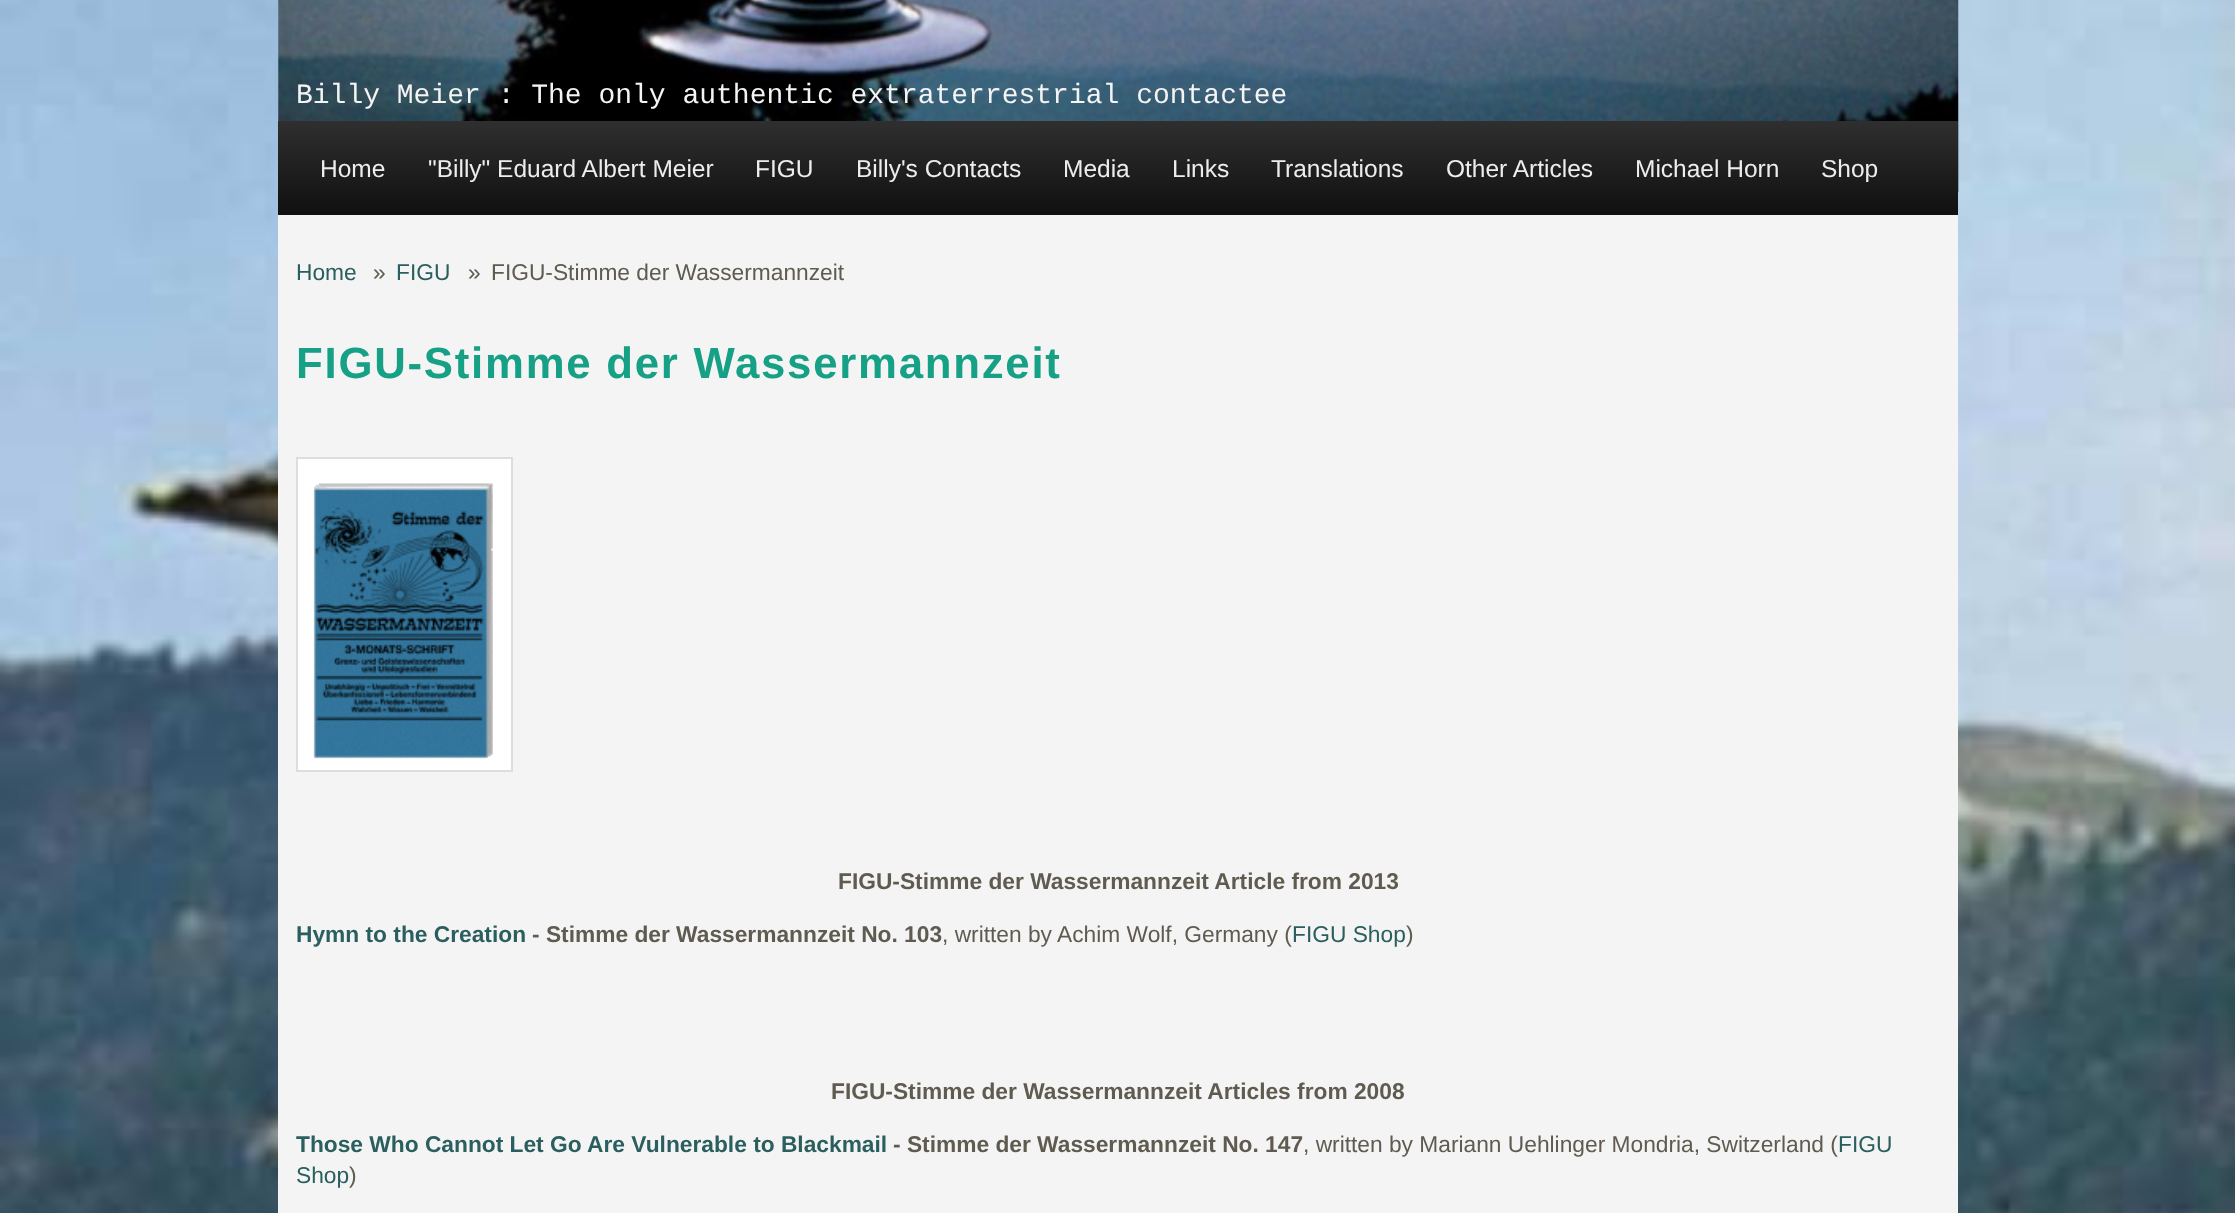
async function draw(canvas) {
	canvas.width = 2235;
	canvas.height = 1213;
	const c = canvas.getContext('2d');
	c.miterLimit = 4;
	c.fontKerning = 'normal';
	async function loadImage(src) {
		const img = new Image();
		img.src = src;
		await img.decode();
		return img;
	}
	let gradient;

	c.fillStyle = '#fff';
	c.fillRect(0, 0, 2235, 1213);
	c.drawImage(await loadImage('img1.png'), 0, 0, 2235, 1213);
	c.drawImage(await loadImage('img2.png'), 278, 0, 1681, 193);
	c.font = '28px Liberation Mono';
	c.fillStyle = '#f4f4f4';
	c.fillText('Billy Meier : The only authentic extraterrestrial contactee', 296, 103);
	gradient = c.createLinearGradient(1118, 121, 1118, 215);
	gradient.addColorStop(0, '#2f2f2f');
	gradient.addColorStop(1, '#101010');
	c.fillStyle = gradient;
	c.fillRect(278, 121, 1680, 94);
	c.font = '24.5px Liberation Sans';
	c.fillStyle = '#ededed';
	for (const [text, x, y] of [
		['Home', 320, 177],
		['"Billy" Eduard Albert Meier', 428, 177],
		['FIGU', 755, 177],
		['Billy\'s Contacts', 856, 177],
		['Media', 1063, 177],
		['Links', 1172, 177],
		['Translations', 1271, 177],
		['Other Articles', 1446, 177],
		['Michael Horn', 1635, 177],
		['Shop', 1821, 177],
	]) {
		c.fillText(text, x, y);
	}
	c.fillStyle = '#f4f4f4';
	c.fillRect(278, 215, 1680, 998);
	c.font = '22.75px Liberation Sans';
	c.fillStyle = '#2b5e5e';
	c.fillText('Home', 296, 280);
	c.fillStyle = '#5f5b50';
	c.fillText('»', 373, 280);
	c.fillStyle = '#2b5e5e';
	c.fillText('FIGU', 396, 280);
	c.fillStyle = '#5f5b50';
	c.fillText('»', 468, 280);
	c.fillText('FIGU-Stimme der Wassermannzeit', 491, 280);
	c.letterSpacing = '1.75px';
	c.font = 'bold 43.75px Liberation Sans';
	c.fillStyle = '#16a085';
	c.fillText('FIGU-Stimme der Wassermannzeit', 296, 378);
	c.fillStyle = '#fff';
	c.beginPath();
	c.rect(297, 458, 215, 313);
	c.fill();
	c.strokeStyle = '#ddd';
	c.lineWidth = 2;
	c.stroke();
	c.drawImage(await loadImage('img3.png'), 313, 483, 180, 276);
	c.letterSpacing = '0px';
	c.font = 'bold 22.75px Liberation Sans';
	c.fillStyle = '#5f5b50';
	c.fillText('FIGU-Stimme der Wassermannzeit Article from 2013', 838, 889);
	c.fillStyle = '#2b5e5e';
	c.fillText('Hymn to the Creation', 296, 942);
	c.fillStyle = '#5f5b50';
	c.fillText('- Stimme der Wassermannzeit No. 103', 532, 942);
	c.font = '22.75px Liberation Sans';
	c.fillText(', written by Achim Wolf, Germany (', 942, 942);
	c.fillStyle = '#2b5e5e';
	c.fillText('FIGU Shop', 1292, 942);
	c.fillStyle = '#5f5b50';
	c.fillText(')', 1406, 942);
	c.font = 'bold 22.75px Liberation Sans';
	c.fillText('FIGU-Stimme der Wassermannzeit Articles from 2008', 831, 1099);
	c.fillStyle = '#2b5e5e';
	c.fillText('Those Who Cannot Let Go Are Vulnerable to Blackmail', 296, 1152);
	c.fillStyle = '#5f5b50';
	c.fillText('- Stimme der Wassermannzeit No. 147', 893, 1152);
	c.font = '22.75px Liberation Sans';
	c.fillText(', written by Mariann Uehlinger Mondria, Switzerland (', 1303, 1152);
	c.fillStyle = '#2b5e5e';
	c.fillText('FIGU', 1838, 1152);
	c.fillText('Shop', 296, 1183);
	c.fillStyle = '#5f5b50';
	c.fillText(')', 349, 1183);
}

draw(document.querySelector('canvas'));
